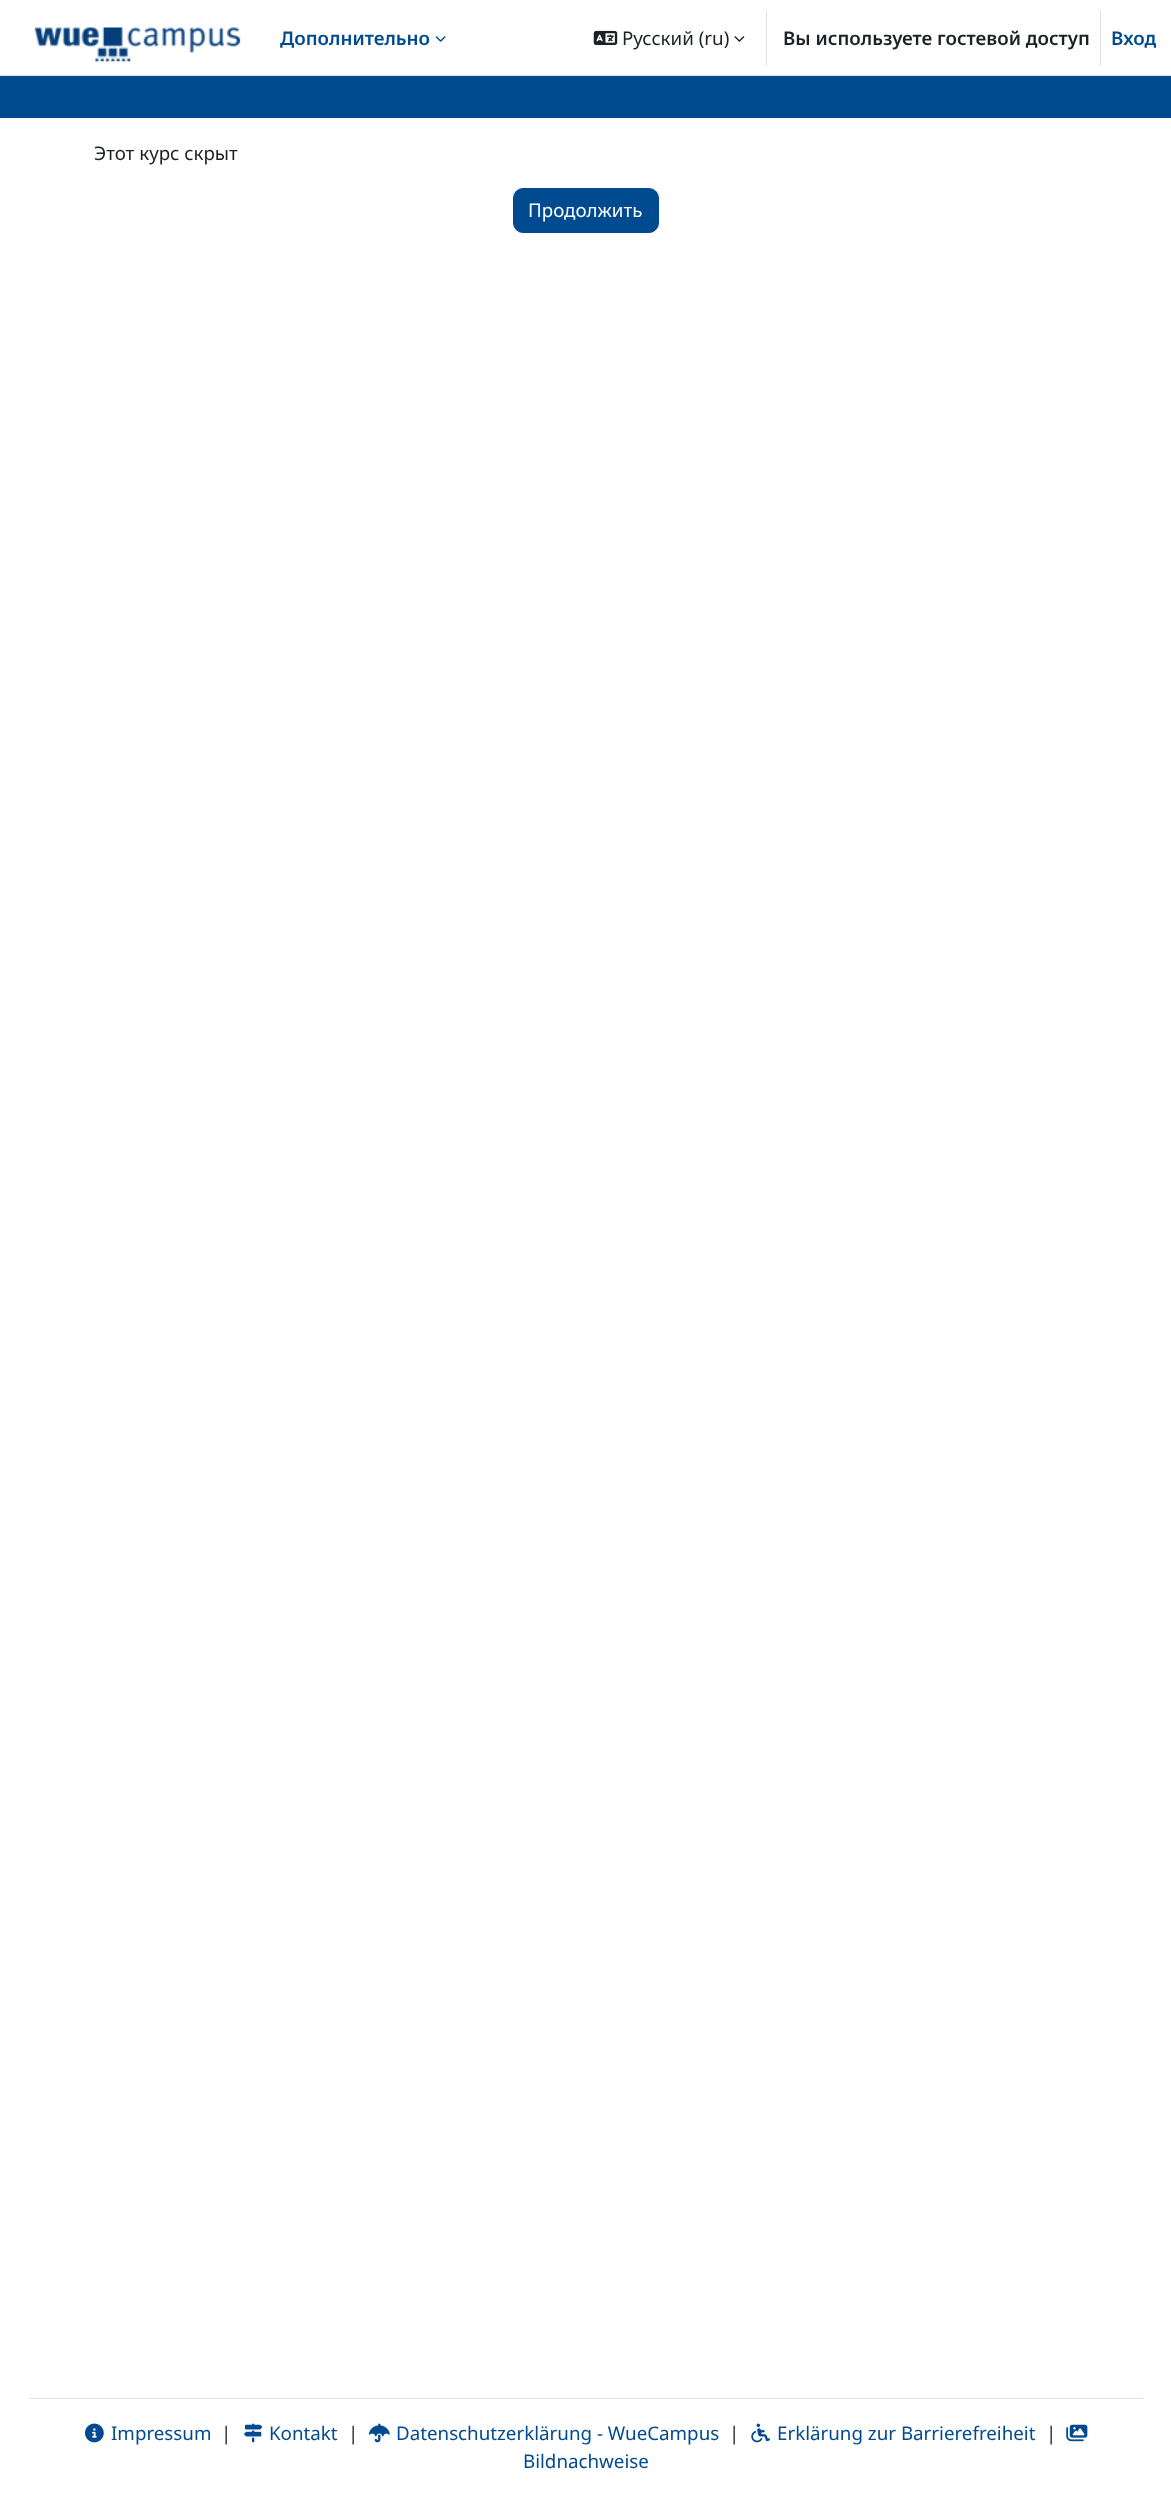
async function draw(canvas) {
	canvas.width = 1171;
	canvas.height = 2515;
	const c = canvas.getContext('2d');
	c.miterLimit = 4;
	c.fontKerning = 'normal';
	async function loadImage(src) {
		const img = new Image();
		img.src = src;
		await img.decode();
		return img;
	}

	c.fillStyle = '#fff';
	c.fillRect(0, 0, 1171, 2515);
	c.fillStyle = '#dee2e6';
	c.fillRect(0, 75, 1171, 1);
	c.drawImage(await loadImage('img1.png'), 34, 27, 207, 35);
	c.font = '600 18.75px Noto Sans';
	c.fillStyle = '#004a8f';
	c.fillText('Дополнительно', 280, 45);
	c.drawImage(await loadImage('img2.png'), 435, 36, 11, 6);
	c.drawImage(await loadImage('img3.png'), 593, 30, 25, 15);
	c.font = '18.75px Noto Sans';
	c.fillStyle = '#1d2125';
	c.fillText('Русский (ru)', 622, 45);
	c.drawImage(await loadImage('img4.png'), 734, 36, 11, 6);
	c.fillStyle = '#dee2e6';
	c.fillRect(766, 10, 1, 56);
	c.font = '600 18.75px Noto Sans';
	c.fillStyle = '#1d2125';
	c.fillText('Вы используете гостевой доступ', 783, 45);
	c.fillStyle = '#dee2e6';
	c.fillRect(1100, 10, 1, 56);
	c.fillStyle = '#004a8f';
	c.fillText('Вход', 1111, 45);
	c.fillRect(0, 76, 1171, 42);
	c.font = '18.75px Noto Sans';
	c.fillStyle = '#1d2125';
	c.fillText('Этот курс скрыт', 94, 160);
	c.fillStyle = '#004a8f';
	c.beginPath();
	c.roundRect(513.5, 188.5, 145, 44, 9.5);
	c.fill();
	c.strokeStyle = '#004a8f';
	c.stroke();
	c.fillStyle = '#fff';
	c.fillText('Продолжить', 528, 217);
	c.fillStyle = '#dee2e6';
	c.fillRect(29, 2398, 1114, 1);
	c.drawImage(await loadImage('img5.png'), 85, 2423, 19, 20);
	c.fillStyle = '#004a8f';
	c.fillText('Impressum', 111, 2440);
	c.fillStyle = '#1d2125';
	c.fillText('|', 221, 2440);
	c.drawImage(await loadImage('img6.png'), 244, 2423, 19, 20);
	c.fillStyle = '#004a8f';
	c.fillText('Kontakt', 269, 2440);
	c.fillStyle = '#1d2125';
	c.fillText('|', 348, 2440);
	c.drawImage(await loadImage('img7.png'), 368, 2423, 22, 20);
	c.fillStyle = '#004a8f';
	c.fillText('Datenschutzerklärung - WueCampus', 396, 2440);
	c.fillStyle = '#1d2125';
	c.fillText('|', 729, 2440);
	c.drawImage(await loadImage('img8.png'), 751, 2423, 19, 20);
	c.fillStyle = '#004a8f';
	c.fillText('Erklärung zur Barrierefreiheit', 777, 2440);
	c.fillStyle = '#1d2125';
	c.fillText('|', 1046, 2440);
	c.drawImage(await loadImage('img9.png'), 1066, 2424, 22, 18);
	c.fillStyle = '#004a8f';
	c.fillText('Bildnachweise', 523, 2468);
}

draw(document.querySelector('canvas'));
